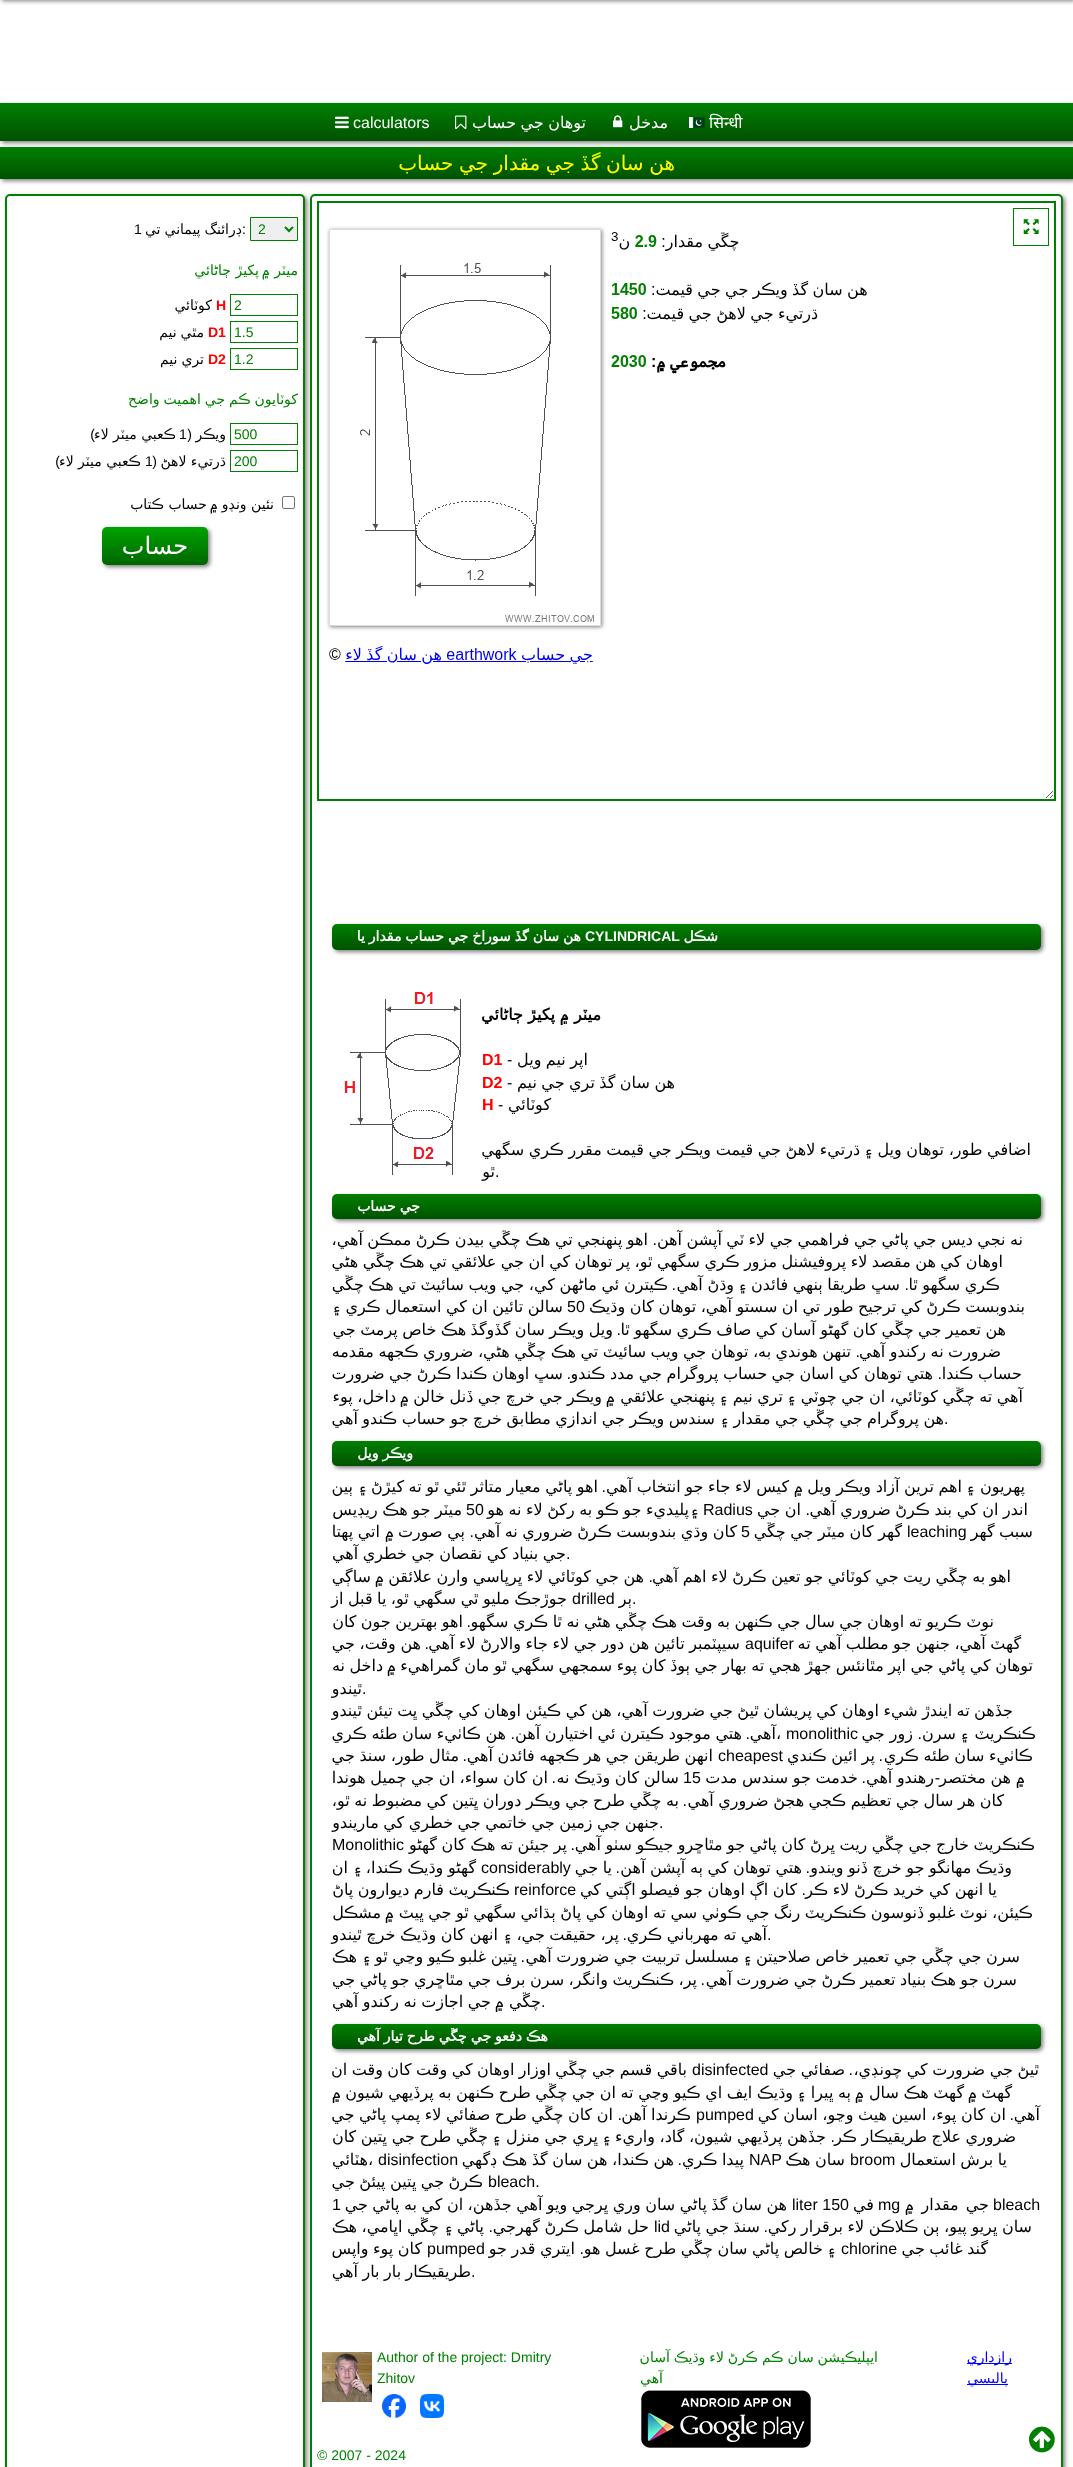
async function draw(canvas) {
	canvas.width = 1073;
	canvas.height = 2467;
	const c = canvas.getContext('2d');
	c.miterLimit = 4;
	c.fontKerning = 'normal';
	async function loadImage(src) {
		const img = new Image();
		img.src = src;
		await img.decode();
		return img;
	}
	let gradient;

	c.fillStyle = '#fff';
	c.fillRect(0, 0, 1073, 2467);
	c.fillStyle = '#00000080';
	c.filter = 'blur(2px)';
	c.beginPath();
	c.roundRect(312, 196, 753, 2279, 5);
	c.fill();
	c.filter = 'none';
	c.filter = 'blur(2px)';
	c.beginPath();
	c.roundRect(7, 196, 300, 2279, 5);
	c.fill();
	c.filter = 'none';
	c.fillStyle = '#fff';
	c.beginPath();
	c.roundRect(311, 195, 751, 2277, 4);
	c.fill();
	c.strokeStyle = '#008000';
	c.lineWidth = 2;
	c.stroke();
	c.drawImage(await loadImage('img1.png'), 1029, 2426, 26, 27);
	c.fillStyle = '#00000080';
	c.filter = 'blur(2px)';
	c.beginPath();
	c.rect(2, -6, 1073, 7);
	c.fill();
	c.filter = 'none';
	c.filter = 'blur(2px)';
	c.beginPath();
	c.rect(2, 149, 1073, 32);
	c.fill();
	c.filter = 'none';
	gradient = c.createLinearGradient(537, 147, 537, 179);
	gradient.addColorStop(0, '#008000');
	gradient.addColorStop(1, '#005200');
	c.fillStyle = gradient;
	c.fillRect(0, 147, 1073, 32);
	c.fillStyle = '#00000080';
	c.filter = 'blur(2px)';
	c.beginPath();
	c.rect(2, 105, 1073, 38);
	c.fill();
	c.filter = 'none';
	gradient = c.createLinearGradient(537, 103, 537, 141);
	gradient.addColorStop(0, '#008000');
	gradient.addColorStop(1, '#005200');
	c.fillStyle = gradient;
	c.fillRect(0, 103, 1073, 38);
	c.font = '16px Noto Sans';
	c.fillStyle = '#fff';
	c.fillText('सिन्धी', 709, 128);
	c.drawImage(await loadImage('img2.png'), 689, 117, 16, 11);
	c.direction = 'rtl';
	c.font = '16px DejaVu Sans';
	c.fillText('مدخل', 668, 128);
	c.drawImage(await loadImage('img3.png'), 613, 115, 10, 13);
	c.wordSpacing = '-0.6px';
	c.fillText('توهان جي حساب', 586, 128);
	c.drawImage(await loadImage('img4.png'), 455, 115, 12, 14);
	c.wordSpacing = '0px';
	c.direction = 'ltr';
	c.font = '16px Liberation Sans';
	c.fillText('calculators', 353, 128);
	c.drawImage(await loadImage('img5.png'), 335, 116, 14, 13);
	c.wordSpacing = '-0.75px';
	c.direction = 'rtl';
	c.font = '20px DejaVu Sans';
	c.fillStyle = '#ff0';
	c.fillText('هن سان گڏ جي مقدار جي حساب', 675, 170);
	c.fillStyle = '#fff';
	c.beginPath();
	c.roundRect(6, 195, 298, 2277, 4);
	c.fill();
	c.stroke();
	c.fillStyle = '#efefef';
	c.beginPath();
	c.rect(250.5, 217.5, 47, 23);
	c.fill();
	c.lineWidth = 1;
	c.stroke();
	c.beginPath();
	c.moveTo(285, 227);
	c.lineTo(289, 231);
	c.lineTo(293, 227);
	c.lineWidth = 2;
	c.stroke();
	c.wordSpacing = '0px';
	c.direction = 'ltr';
	c.font = '14px Liberation Sans';
	c.fillStyle = '#008000';
	c.fillText('2', 258, 234);
	c.fillStyle = '#000';
	c.fillText(':', 242, 234);
	c.wordSpacing = '-0.5px';
	c.direction = 'rtl';
	c.font = '14px DejaVu Sans';
	c.fillText('ڊرائنگ پيماني تي', 242, 234);
	c.wordSpacing = '0px';
	c.direction = 'ltr';
	c.font = '14px Liberation Sans';
	c.fillText('1', 134, 234);
	c.direction = 'rtl';
	c.font = '14px DejaVu Sans';
	c.fillStyle = '#008000';
	c.fillText('ميٽر', 298, 275);
	c.font = '14px Cascadia Code';
	c.fillText('۾', 270, 275);
	c.font = '14px DejaVu Sans';
	c.fillText('پکيڙ ڄاڻائي', 259, 275);
	c.lineWidth = 1;
	c.strokeRect(230.5, 294.5, 67, 21);
	c.direction = 'ltr';
	c.font = '14px Liberation Sans';
	c.fillText('2', 234, 310);
	c.font = 'bold 14px Liberation Sans';
	c.fillStyle = '#f00';
	c.fillText('H', 216, 310);
	c.direction = 'rtl';
	c.font = '14px DejaVu Sans';
	c.fillStyle = '#000';
	c.fillText('کوٽائي', 212, 310);
	c.strokeRect(230.5, 321.5, 67, 21);
	c.direction = 'ltr';
	c.font = '14px Liberation Sans';
	c.fillStyle = '#008000';
	c.fillText('1.5', 234, 337);
	c.font = 'bold 14px Liberation Sans';
	c.fillStyle = '#f00';
	c.fillText('D1', 208, 337);
	c.wordSpacing = '-0.5px';
	c.direction = 'rtl';
	c.font = '14px DejaVu Sans';
	c.fillStyle = '#000';
	c.fillText('مٿي نيم', 204, 337);
	c.strokeRect(230.5, 348.5, 67, 21);
	c.wordSpacing = '0px';
	c.direction = 'ltr';
	c.font = '14px Liberation Sans';
	c.fillStyle = '#008000';
	c.fillText('1.2', 234, 364);
	c.font = 'bold 14px Liberation Sans';
	c.fillStyle = '#f00';
	c.fillText('D2', 208, 364);
	c.wordSpacing = '-0.5px';
	c.direction = 'rtl';
	c.font = '14px DejaVu Sans';
	c.fillStyle = '#000';
	c.fillText('تري نيم', 204, 364);
	c.fillStyle = '#008000';
	c.fillText('کوٽايون ڪم جي اهميت واضح', 298, 404);
	c.strokeRect(230.5, 423.5, 67, 21);
	c.wordSpacing = '0px';
	c.direction = 'ltr';
	c.font = '14px Liberation Sans';
	c.fillText('500', 234, 439);
	c.direction = 'rtl';
	c.font = '14px DejaVu Sans';
	c.fillStyle = '#000';
	c.fillText('ويڪر', 226, 439);
	c.font = '14px Liberation Sans';
	c.fillText('(', 192, 439);
	c.direction = 'ltr';
	c.fillText('1', 179, 439);
	c.direction = 'rtl';
	c.font = '14px DejaVu Sans';
	c.fillText('ڪعبي ميٽر لاء', 176, 439);
	c.font = '14px Liberation Sans';
	c.fillText(')', 95, 439);
	c.strokeRect(230.5, 450.5, 67, 21);
	c.direction = 'ltr';
	c.fillStyle = '#008000';
	c.fillText('200', 234, 466);
	c.direction = 'rtl';
	c.font = '14px DejaVu Sans';
	c.fillStyle = '#000';
	c.fillText('ڌرتيء لاهڻ', 226, 466);
	c.font = '14px Liberation Sans';
	c.fillText('(', 157, 466);
	c.direction = 'ltr';
	c.fillText('1', 145, 466);
	c.direction = 'rtl';
	c.font = '14px DejaVu Sans';
	c.fillText('ڪعبي ميٽر لاء', 141, 466);
	c.font = '14px Liberation Sans';
	c.fillText(')', 60, 466);
	c.beginPath();
	c.roundRect(282.5, 496.5, 12, 12, 1.5);
	c.strokeStyle = '#767676';
	c.stroke();
	c.font = '14px DejaVu Sans';
	c.fillText('نئين ونڊو', 274, 509);
	c.font = '14px Cascadia Code';
	c.fillText('۾', 218, 509);
	c.font = '14px DejaVu Sans';
	c.fillText('حساب ڪتاب', 207, 509);
	c.fillStyle = '#00000080';
	c.filter = 'blur(2px)';
	c.beginPath();
	c.roundRect(104, 529, 106, 38, 5);
	c.fill();
	c.filter = 'none';
	gradient = c.createLinearGradient(155, 527, 155, 565);
	gradient.addColorStop(0, '#00a300');
	gradient.addColorStop(1, '#060');
	c.fillStyle = gradient;
	c.beginPath();
	c.roundRect(102, 527, 106, 38, 5);
	c.fill();
	c.font = '24px DejaVu Sans';
	c.fillStyle = '#fff';
	c.fillText('حساب', 188, 554);
	c.strokeStyle = '#008000';
	c.lineWidth = 2;
	c.strokeRect(318, 202, 737, 598);
	c.drawImage(await loadImage('img6.png'), 326, 208, 727, 590);
	c.fillStyle = '#00000080';
	c.filter = 'blur(2px)';
	c.beginPath();
	c.roundRect(334, 926, 709, 26, 5);
	c.fill();
	c.filter = 'none';
	gradient = c.createLinearGradient(687, 924, 687, 950);
	gradient.addColorStop(0, '#008000');
	gradient.addColorStop(1, '#005200');
	c.fillStyle = gradient;
	c.beginPath();
	c.roundRect(332, 924, 709, 26, 5);
	c.fill();
	c.font = 'bold 14px DejaVu Sans';
	c.fillStyle = '#fff';
	c.fillText('شڪل', 718, 941);
	c.direction = 'ltr';
	c.font = 'bold 14px Liberation Sans';
	c.fillText('CYLINDRICAL', 585, 941);
	c.wordSpacing = '-0.5px';
	c.direction = 'rtl';
	c.font = 'bold 14px DejaVu Sans';
	c.fillText('هن سان گڏ سوراخ جي حساب مقدار يا', 581, 941);
	c.wordSpacing = '0px';
	c.font = 'bold 16px DejaVu Sans';
	c.fillStyle = '#000';
	c.fillText('ميٽر', 601, 1020);
	c.font = 'bold 16px Cascadia Code';
	c.fillText('۾', 569, 1020);
	c.font = 'bold 16px DejaVu Sans';
	c.fillText('پکيڙ ڄاڻائي', 555, 1020);
	c.drawImage(await loadImage('img7.png'), 344, 992, 117, 183);
	c.wordSpacing = '-0.6px';
	c.font = '16px DejaVu Sans';
	c.fillText('اپر نيم ويل', 588, 1065);
	c.wordSpacing = '0px';
	c.direction = 'ltr';
	c.font = '16px Liberation Sans';
	c.fillText('-', 507, 1065);
	c.font = 'bold 16px Liberation Sans';
	c.fillStyle = '#f00';
	c.fillText('D1', 482, 1065);
	c.wordSpacing = '-0.6px';
	c.direction = 'rtl';
	c.font = '16px DejaVu Sans';
	c.fillStyle = '#000';
	c.fillText('هن سان گڏ تري جي نيم', 675, 1088);
	c.wordSpacing = '0px';
	c.direction = 'ltr';
	c.font = '16px Liberation Sans';
	c.fillText('-', 507, 1088);
	c.font = 'bold 16px Liberation Sans';
	c.fillStyle = '#f00';
	c.fillText('D2', 482, 1088);
	c.direction = 'rtl';
	c.font = '16px DejaVu Sans';
	c.fillStyle = '#000';
	c.fillText('کوٽائي', 551, 1110);
	c.direction = 'ltr';
	c.font = '16px Liberation Sans';
	c.fillText('-', 498, 1110);
	c.font = 'bold 16px Liberation Sans';
	c.fillStyle = '#f00';
	c.fillText('H', 482, 1110);
	c.wordSpacing = '-0.5px';
	c.direction = 'rtl';
	c.font = '16px DejaVu Sans';
	c.fillStyle = '#000';
	c.fillText('اضافي طور، توهان ويل', 1031, 1155);
	c.wordSpacing = '0px';
	c.font = '16px Cascadia Code';
	c.fillText('۽', 873, 1155);
	c.wordSpacing = '-0.5px';
	c.font = '16px DejaVu Sans';
	c.fillText('ڌرتيء لاهڻ جي قيمت ويڪر جي قيمت مقرر ڪري سگهي', 860, 1155);
	c.wordSpacing = '0px';
	c.direction = 'ltr';
	c.font = '16px Liberation Sans';
	c.fillText('.', 495, 1177);
	c.direction = 'rtl';
	c.font = '16px DejaVu Sans';
	c.fillText('ٿو', 495, 1177);
	c.fillStyle = '#00000080';
	c.filter = 'blur(2px)';
	c.beginPath();
	c.roundRect(334, 1196, 709, 25, 5);
	c.fill();
	c.filter = 'none';
	gradient = c.createLinearGradient(687, 1194, 687, 1219);
	gradient.addColorStop(0, '#008000');
	gradient.addColorStop(1, '#005200');
	c.fillStyle = gradient;
	c.beginPath();
	c.roundRect(332, 1194, 709, 25, 5);
	c.fill();
	c.wordSpacing = '-0.5px';
	c.font = 'bold 14px DejaVu Sans';
	c.fillStyle = '#fff';
	c.fillText('جي حساب', 420, 1211);
	c.wordSpacing = '-0.6px';
	c.font = '16px DejaVu Sans';
	c.fillStyle = '#000';
	c.fillText('نه نجي ديس جي پاڻي جي فراهمي جي لاء ٽي آپشن آهن', 1023, 1245);
	c.wordSpacing = '0px';
	c.font = '16px Liberation Sans';
	c.fillText('.', 657, 1245);
	c.wordSpacing = '-0.6px';
	c.font = '16px DejaVu Sans';
	c.fillText('اهو پنهنجي تي هڪ چڱي بيدن ڪرڻ ممڪن آهي،', 648, 1245);
	c.fillText('اوهان کي هن مقصد لاء پروفيشنل مزور ڪري سگهي ٿو، پر توهان کي ان جي علائقي تي هڪ چڱي ھڻي', 1003, 1267);
	c.wordSpacing = '-0.5px';
	c.fillText('ڪري سگهو ٿا', 1000, 1290);
	c.wordSpacing = '0px';
	c.font = '16px Liberation Sans';
	c.fillText('.', 909, 1290);
	c.wordSpacing = '-0.5px';
	c.font = '16px DejaVu Sans';
	c.fillText('سڀ طريقا ٻنهي فائدن', 900, 1290);
	c.wordSpacing = '0px';
	c.font = '16px Cascadia Code';
	c.fillText('۽', 747, 1290);
	c.wordSpacing = '-0.5px';
	c.font = '16px DejaVu Sans';
	c.fillText('وڌڻ آهي', 734, 1290);
	c.wordSpacing = '0px';
	c.font = '16px Liberation Sans';
	c.fillText('.', 676, 1290);
	c.wordSpacing = '-0.5px';
	c.font = '16px DejaVu Sans';
	c.fillText('ڪيترن ئي ماڻهن کي، جي ويب سائيٽ تي هڪ چڱي', 668, 1290);
	c.wordSpacing = '-0.6px';
	c.fillText('بندوبست ڪرڻ کي ترجيح طور تي ان سستو آهي، توهان کان وڌيڪ', 1025, 1312);
	c.wordSpacing = '0px';
	c.direction = 'ltr';
	c.font = '16px Liberation Sans';
	c.fillText('50', 567, 1312);
	c.wordSpacing = '-0.5px';
	c.direction = 'rtl';
	c.font = '16px DejaVu Sans';
	c.fillText('سالن تائين ان کي استعمال ڪري', 563, 1312);
	c.wordSpacing = '0px';
	c.font = '16px Cascadia Code';
	c.fillText('۽', 341, 1312);
	c.wordSpacing = '-0.6px';
	c.font = '16px DejaVu Sans';
	c.fillText('هن تعمير جي چڱي کان گهڻو آسان کي صاف ڪري سگھو ٿا', 1006, 1335);
	c.wordSpacing = '0px';
	c.font = '16px Liberation Sans';
	c.fillText('.', 621, 1335);
	c.wordSpacing = '-0.6px';
	c.font = '16px DejaVu Sans';
	c.fillText('ويل ويڪر سان گڏوگڏ هڪ خاص پرمٽ جي', 613, 1335);
	c.fillText('ضرورت نه رکندو آھي', 1001, 1357);
	c.wordSpacing = '0px';
	c.font = '16px Liberation Sans';
	c.fillText('.', 860, 1357);
	c.wordSpacing = '-0.6px';
	c.font = '16px DejaVu Sans';
	c.fillText('تنهن هوندي به، توهان جي ويب سائيٽ تي هڪ چڱي ھڻي، ضروري ڪجهه مقدمه', 851, 1357);
	c.wordSpacing = '-0.5px';
	c.fillText('حساب ڪندا', 1022, 1379);
	c.wordSpacing = '0px';
	c.font = '16px Liberation Sans';
	c.fillText('.', 942, 1379);
	c.fillText('.', 571, 1379);
	c.wordSpacing = '-0.5px';
	c.font = '16px DejaVu Sans';
	for (const [text, x, y] of [
		['هتي توهان کي اسان جي حساب پروگرام جي مدد ڪندو', 933, 1379],
		['سڀ اوھان ڪندا ڪرڻ جي ضرورت', 563, 1379],
		['آهي ته چڱي کوٽائي، ان جي چوٽي', 1023, 1402],
	]) {
		c.fillText(text, x, y);
	}
	c.wordSpacing = '0px';
	c.font = '16px Cascadia Code';
	c.fillText('۽', 796, 1402);
	c.wordSpacing = '-0.5px';
	c.font = '16px DejaVu Sans';
	c.fillText('تري نيم', 783, 1402);
	c.wordSpacing = '0px';
	c.font = '16px Cascadia Code';
	c.fillText('۽', 728, 1402);
	c.wordSpacing = '-0.5px';
	c.font = '16px DejaVu Sans';
	c.fillText('پنهنجي علائقي', 715, 1402);
	c.wordSpacing = '0px';
	c.font = '16px Cascadia Code';
	c.fillText('۾', 615, 1402);
	c.wordSpacing = '-0.5px';
	c.font = '16px DejaVu Sans';
	c.fillText('ويڪر جي خرچ جي ڏنل خالن', 602, 1402);
	c.wordSpacing = '0px';
	c.font = '16px Cascadia Code';
	c.fillText('۾', 409, 1402);
	c.wordSpacing = '-0.5px';
	c.font = '16px DejaVu Sans';
	c.fillText('داخل، پوء', 396, 1402);
	c.wordSpacing = '0px';
	c.direction = 'ltr';
	c.font = '16px Liberation Sans';
	c.fillText('.', 944, 1424);
	c.wordSpacing = '-0.6px';
	c.direction = 'rtl';
	c.font = '16px DejaVu Sans';
	c.fillText('هن پروگرام جي چڱي جي مقدار', 944, 1424);
	c.wordSpacing = '0px';
	c.font = '16px Cascadia Code';
	c.fillText('۽', 729, 1424);
	c.wordSpacing = '-0.6px';
	c.font = '16px DejaVu Sans';
	c.fillText('سندس ويڪر جي اندازي مطابق خرچ جو حساب ڪندو آهي', 715, 1424);
	c.fillStyle = '#00000080';
	c.filter = 'blur(2px)';
	c.beginPath();
	c.roundRect(334, 1443, 709, 25, 5);
	c.fill();
	c.filter = 'none';
	gradient = c.createLinearGradient(687, 1441, 687, 1466);
	gradient.addColorStop(0, '#008000');
	gradient.addColorStop(1, '#005200');
	c.fillStyle = gradient;
	c.beginPath();
	c.roundRect(332, 1441, 709, 25, 5);
	c.fill();
	c.wordSpacing = '-0.5px';
	c.font = 'bold 14px DejaVu Sans';
	c.fillStyle = '#fff';
	c.fillText('ويڪر ويل', 413, 1458);
	c.wordSpacing = '0px';
	c.font = '16px DejaVu Sans';
	c.fillStyle = '#000';
	c.fillText('پهريون', 1025, 1492);
	c.font = '16px Cascadia Code';
	c.fillText('۽', 975, 1492);
	c.wordSpacing = '-0.5px';
	c.font = '16px DejaVu Sans';
	c.fillText('اهم ترين آزاد ويڪر ويل', 962, 1492);
	c.wordSpacing = '0px';
	c.font = '16px Cascadia Code';
	c.fillText('۾', 803, 1492);
	c.wordSpacing = '-0.5px';
	c.font = '16px DejaVu Sans';
	c.fillText('کيس لاء جاء جو انتخاب آهي', 789, 1492);
	c.wordSpacing = '0px';
	c.font = '16px Liberation Sans';
	c.fillText('.', 606, 1492);
	c.wordSpacing = '-0.5px';
	c.font = '16px DejaVu Sans';
	c.fillText('اهو پاڻي معيار متاثر ٿئي ٿو ته کيڙڻ', 598, 1492);
	c.wordSpacing = '0px';
	c.font = '16px Cascadia Code';
	c.fillText('۽', 367, 1492);
	c.font = '16px DejaVu Sans';
	c.fillText('ٻين', 353, 1492);
	c.wordSpacing = '-0.5px';
	c.fillText('اندر ان کي بند ڪرڻ ضروري آهي', 1028, 1515);
	c.wordSpacing = '0px';
	c.font = '16px Liberation Sans';
	c.fillText('.', 810, 1515);
	c.wordSpacing = '-0.5px';
	c.font = '16px DejaVu Sans';
	c.fillText('ان جي', 801, 1515);
	c.wordSpacing = '0px';
	c.direction = 'ltr';
	c.font = '16px Liberation Sans';
	c.fillText('Radius', 703, 1515);
	c.direction = 'rtl';
	c.font = '16px Cascadia Code';
	c.fillText('۽', 699, 1515);
	c.wordSpacing = '-0.6px';
	c.font = '16px DejaVu Sans';
	c.fillText('پليديء جو ڪو به رکڻ لاء نه هو', 689, 1515);
	c.wordSpacing = '0px';
	c.direction = 'ltr';
	c.font = '16px Liberation Sans';
	c.fillText('50', 466, 1515);
	c.wordSpacing = '-0.5px';
	c.direction = 'rtl';
	c.font = '16px DejaVu Sans';
	c.fillText('ميٽر جو هڪ ريڊيس', 462, 1515);
	c.wordSpacing = '-0.6px';
	c.fillText('سبب گھر', 1033, 1537);
	c.wordSpacing = '0px';
	c.direction = 'ltr';
	c.font = '16px Liberation Sans';
	c.fillText('leaching', 907, 1537);
	c.wordSpacing = '-0.6px';
	c.direction = 'rtl';
	c.font = '16px DejaVu Sans';
	c.fillText('گھر کان ميٽر جي چڱي', 902, 1537);
	c.wordSpacing = '0px';
	c.direction = 'ltr';
	c.font = '16px Liberation Sans';
	c.fillText('5', 741, 1537);
	c.wordSpacing = '-0.5px';
	c.direction = 'rtl';
	c.font = '16px DejaVu Sans';
	c.fillText('کان وڌي بندوبست ڪرڻ ضروري نه آهي', 737, 1537);
	c.wordSpacing = '0px';
	c.font = '16px Liberation Sans';
	c.fillText('.', 474, 1537);
	c.wordSpacing = '-0.5px';
	c.font = '16px DejaVu Sans';
	c.fillText('ٻي صورت', 465, 1537);
	c.wordSpacing = '0px';
	c.font = '16px Cascadia Code';
	c.fillText('۾', 394, 1537);
	c.wordSpacing = '-0.5px';
	c.font = '16px DejaVu Sans';
	c.fillText('اتي پهتا', 380, 1537);
	c.wordSpacing = '0px';
	c.direction = 'ltr';
	c.font = '16px Liberation Sans';
	c.fillText('.', 566, 1559);
	c.wordSpacing = '-0.6px';
	c.direction = 'rtl';
	c.font = '16px DejaVu Sans';
	c.fillText('جي بنياد کي نقصان جي خطري آهي', 566, 1559);
	c.wordSpacing = '-0.5px';
	c.fillText('اهو به چڱي ريت جي کوٽائي جو تعين ڪرڻ لاء اهم آهي', 1011, 1582);
	c.wordSpacing = '0px';
	c.font = '16px Liberation Sans';
	c.fillText('.', 653, 1582);
	c.wordSpacing = '-0.5px';
	c.font = '16px DejaVu Sans';
	c.fillText('هن جي کوٽائي لاء ڀرپاسي وارن علائقن', 644, 1582);
	c.wordSpacing = '0px';
	c.font = '16px Cascadia Code';
	c.fillText('۾', 384, 1582);
	c.font = '16px DejaVu Sans';
	c.fillText('ساڳي', 371, 1582);
	c.direction = 'ltr';
	c.font = '16px Liberation Sans';
	c.fillText('.', 632, 1604);
	c.direction = 'rtl';
	c.font = '16px DejaVu Sans';
	c.fillText('ٻر', 632, 1604);
	c.direction = 'ltr';
	c.font = '16px Liberation Sans';
	c.fillText('drilled', 572, 1604);
	c.wordSpacing = '-0.6px';
	c.direction = 'rtl';
	c.font = '16px DejaVu Sans';
	c.fillText('جوڙجڪ مليو ٿي سگهي ٿو، يا قبل از', 567, 1604);
	c.fillText('نوٽ ڪريو ته اوھان جي سال جي ڪنهن به وقت هڪ چڱي ھڻي نه ٿا ڪري سگهو', 994, 1627);
	c.wordSpacing = '0px';
	c.font = '16px Liberation Sans';
	c.fillText('.', 471, 1627);
	c.wordSpacing = '-0.6px';
	c.font = '16px DejaVu Sans';
	c.fillText('اهو بهترين جون کان', 463, 1627);
	c.fillText('گهٽ آهي، جنهن جو مطلب آهي ته', 1021, 1649);
	c.wordSpacing = '0px';
	c.direction = 'ltr';
	c.font = '16px Liberation Sans';
	c.fillText('aquifer', 745, 1649);
	c.wordSpacing = '-0.5px';
	c.direction = 'rtl';
	c.font = '16px DejaVu Sans';
	c.fillText('سيپٽمبر تائين هن دور جي لاء جاء والارڻ لاء آهي', 740, 1649);
	c.wordSpacing = '0px';
	c.font = '16px Liberation Sans';
	c.fillText('.', 429, 1649);
	c.wordSpacing = '-0.5px';
	c.font = '16px DejaVu Sans';
	c.fillText('هن وقت، جي', 421, 1649);
	c.wordSpacing = '-0.6px';
	c.fillText('توهان کي پاڻي جي اپر مٿانئس جھڙ ھجي ته بهار جي ٻوڏ کان پوء سمجهي سگهي ٿو مان گمراھيء', 1033, 1671);
	c.wordSpacing = '0px';
	c.font = '16px Cascadia Code';
	c.fillText('۾', 396, 1671);
	c.wordSpacing = '-0.6px';
	c.font = '16px DejaVu Sans';
	c.fillText('داخل نه', 383, 1671);
	c.wordSpacing = '0px';
	c.direction = 'ltr';
	c.font = '16px Liberation Sans';
	c.fillText('.', 362, 1694);
	c.direction = 'rtl';
	c.font = '16px DejaVu Sans';
	c.fillText('ٿيندو', 362, 1694);
	c.wordSpacing = '-0.6px';
	c.fillText('جڏهن ته ايندڙ شيء اوھان کي پريشان ٿيڻ جي ضرورت آهي، هن کي ڪيئن اوھان کي چڱي ڀت تيئن ٿيندو', 1013, 1716);
	c.wordSpacing = '0px';
	c.fillText('ڪنڪريٽ', 1036, 1739);
	c.font = '16px Cascadia Code';
	c.fillText('۽', 969, 1739);
	c.font = '16px DejaVu Sans';
	c.fillText('سرن', 956, 1739);
	c.font = '16px Liberation Sans';
	c.fillText('.', 922, 1739);
	c.font = '16px DejaVu Sans';
	c.fillText('زور جي', 913, 1739);
	c.direction = 'ltr';
	c.font = '16px Liberation Sans';
	c.fillText('monolithic', 786, 1739);
	c.font = '16px DejaVu Sans';
	c.fillText('،', 776, 1739);
	c.direction = 'rtl';
	c.fillText('آهي', 776, 1739);
	c.font = '16px Liberation Sans';
	c.fillText('.', 750, 1739);
	c.wordSpacing = '-0.5px';
	c.font = '16px DejaVu Sans';
	c.fillText('هتي موجود ڪيترن ئي اختيارن آهن', 742, 1739);
	c.wordSpacing = '0px';
	c.font = '16px Liberation Sans';
	c.fillText('.', 515, 1739);
	c.wordSpacing = '-0.5px';
	c.font = '16px DejaVu Sans';
	c.fillText('هن ڪاٺيء سان طئه ڪري', 506, 1739);
	c.fillText('ڪاٺيء سان طئه ڪري', 1033, 1761);
	c.wordSpacing = '0px';
	c.font = '16px Liberation Sans';
	c.fillText('.', 883, 1761);
	c.wordSpacing = '-0.5px';
	c.font = '16px DejaVu Sans';
	c.fillText('پر ائين ڪندي', 875, 1761);
	c.wordSpacing = '0px';
	c.direction = 'ltr';
	c.font = '16px Liberation Sans';
	c.fillText('cheapest', 718, 1761);
	c.wordSpacing = '-0.5px';
	c.direction = 'rtl';
	c.font = '16px DejaVu Sans';
	c.fillText('انهن طريقن جي هر ڪجهه فائدن آهي', 713, 1761);
	c.wordSpacing = '0px';
	c.font = '16px Liberation Sans';
	c.fillText('.', 467, 1761);
	c.wordSpacing = '-0.5px';
	c.font = '16px DejaVu Sans';
	c.fillText('مثال طور، سنڌ جي', 459, 1761);
	c.wordSpacing = '0px';
	c.font = '16px Cascadia Code';
	c.fillText('۾', 1025, 1783);
	c.wordSpacing = '-0.5px';
	c.font = '16px DejaVu Sans';
	c.fillText('هن مختصر', 1011, 1783);
	c.wordSpacing = '0px';
	c.font = '16px Liberation Sans';
	c.fillText('-', 940, 1783);
	c.wordSpacing = '-0.5px';
	c.font = '16px DejaVu Sans';
	c.fillText('رهندو آهي', 934, 1783);
	c.fillText('خدمت جو سندس مدت', 858, 1783);
	c.wordSpacing = '0px';
	c.direction = 'ltr';
	c.font = '16px Liberation Sans';
	c.fillText('15', 683, 1783);
	c.wordSpacing = '-0.5px';
	c.direction = 'rtl';
	c.font = '16px DejaVu Sans';
	c.fillText('سالن کان وڌيڪ نه', 679, 1783);
	c.fillText('ان کان سواء، ان جي ڄميل هوندا', 548, 1783);
	c.wordSpacing = '0px';
	c.font = '16px Liberation Sans';
	c.fillText('.', 866, 1783);
	c.fillText('.', 556, 1783);
	c.wordSpacing = '-0.6px';
	c.font = '16px DejaVu Sans';
	c.fillText('کان هر سال جي تعظيم ڪجي هجڻ ضروري آهي', 1004, 1806);
	c.wordSpacing = '0px';
	c.font = '16px Liberation Sans';
	c.fillText('.', 687, 1806);
	c.wordSpacing = '-0.6px';
	c.font = '16px DejaVu Sans';
	c.fillText('به چڱي طرح جي ويڪر دوران ڀتين کي مضبوط نه ٿو،', 679, 1806);
	c.wordSpacing = '0px';
	c.direction = 'ltr';
	c.font = '16px Liberation Sans';
	c.fillText('.', 659, 1828);
	c.wordSpacing = '-0.6px';
	c.direction = 'rtl';
	c.font = '16px DejaVu Sans';
	c.fillText('جنهن جي زمين جي خاتمي جي خطري کي ماريندو', 659, 1828);
	c.fillText('ڪنڪريٽ خارج جي چڱي ريت ڀرڻ کان پاڻي جو مٿاڇرو جيڪو سٺو آهي', 1035, 1850);
	c.wordSpacing = '0px';
	c.font = '16px Liberation Sans';
	c.fillText('.', 575, 1850);
	c.wordSpacing = '-0.6px';
	c.font = '16px DejaVu Sans';
	c.fillText('پر جيئن ته هڪ کان گهڻو', 567, 1850);
	c.wordSpacing = '0px';
	c.direction = 'ltr';
	c.font = '16px Liberation Sans';
	c.fillText('Monolithic', 332, 1850);
	c.wordSpacing = '-0.5px';
	c.direction = 'rtl';
	c.font = '16px DejaVu Sans';
	c.fillText('وڌيڪ مهانگو جو خرچ ڏنو ويندو', 1012, 1873);
	c.wordSpacing = '0px';
	c.font = '16px Liberation Sans';
	c.fillText('.', 810, 1873);
	c.wordSpacing = '-0.5px';
	c.font = '16px DejaVu Sans';
	c.fillText('هتي توهان کي ٻه آپشن آهن', 802, 1873);
	c.wordSpacing = '0px';
	c.font = '16px Liberation Sans';
	c.fillText('.', 620, 1873);
	c.wordSpacing = '-0.5px';
	c.font = '16px DejaVu Sans';
	c.fillText('يا جي', 612, 1873);
	c.wordSpacing = '0px';
	c.direction = 'ltr';
	c.font = '16px Liberation Sans';
	c.fillText('considerably', 481, 1873);
	c.wordSpacing = '-0.5px';
	c.direction = 'rtl';
	c.font = '16px DejaVu Sans';
	c.fillText('گهڻو وڌيڪ ڪندا،', 476, 1873);
	c.wordSpacing = '0px';
	c.font = '16px Cascadia Code';
	c.fillText('۽', 362, 1873);
	c.font = '16px DejaVu Sans';
	c.fillText('ان', 348, 1873);
	c.font = '16px Liberation Sans';
	c.fillText('.', 806, 1895);
	c.wordSpacing = '-0.5px';
	c.font = '16px DejaVu Sans';
	c.fillText('يا انھن کي خريد ڪرڻ لاء ڪر', 997, 1895);
	c.fillText('کان اڳ اوھان جو فيصلو اڳتي کي', 797, 1895);
	c.wordSpacing = '0px';
	c.direction = 'ltr';
	c.font = '16px Liberation Sans';
	c.fillText('reinforce', 514, 1895);
	c.wordSpacing = '-0.6px';
	c.direction = 'rtl';
	c.font = '16px DejaVu Sans';
	c.fillText('ڪنڪريٽ فارم ديوارون پاڻ', 510, 1895);
	c.fillText('ڪيئن، نوٽ غلبو ڏنوسون ڪنڪريٽ رنگ جي ڪوٺي سي ته اوھان کي پاڻ ٻڌائي سگهي ٿو جي ڀيٽ', 1033, 1918);
	c.wordSpacing = '0px';
	c.font = '16px Cascadia Code';
	c.fillText('۾', 394, 1918);
	c.font = '16px DejaVu Sans';
	c.fillText('مشڪل', 381, 1918);
	c.direction = 'ltr';
	c.font = '16px Liberation Sans';
	c.fillText('.', 767, 1940);
	c.wordSpacing = '-0.5px';
	c.direction = 'rtl';
	c.font = '16px DejaVu Sans';
	c.fillText('آهي ته مهرباني ڪري', 767, 1940);
	c.wordSpacing = '0px';
	c.font = '16px Liberation Sans';
	c.fillText('.', 627, 1940);
	c.wordSpacing = '-0.5px';
	c.font = '16px DejaVu Sans';
	c.fillText('پر، حقيقت جي،', 619, 1940);
	c.wordSpacing = '0px';
	c.font = '16px Cascadia Code';
	c.fillText('۽', 512, 1940);
	c.wordSpacing = '-0.5px';
	c.font = '16px DejaVu Sans';
	c.fillText('انھن کان وڌيڪ خرچ ٿيندو', 498, 1940);
	c.fillText('سرن جي چڱي جي تعمير خاص صلاحيتن', 1020, 1962);
	c.wordSpacing = '0px';
	c.font = '16px Cascadia Code';
	c.fillText('۽', 752, 1962);
	c.wordSpacing = '-0.5px';
	c.font = '16px DejaVu Sans';
	c.fillText('مسلسل تربيت جي ضرورت آهي', 739, 1962);
	c.wordSpacing = '0px';
	c.font = '16px Liberation Sans';
	c.fillText('.', 525, 1962);
	c.wordSpacing = '-0.5px';
	c.font = '16px DejaVu Sans';
	c.fillText('ڀتين غلبو ڪيو وڃي ٿو', 517, 1962);
	c.wordSpacing = '0px';
	c.font = '16px Cascadia Code';
	c.fillText('۽', 371, 1962);
	c.font = '16px DejaVu Sans';
	c.fillText('هڪ', 357, 1962);
	c.wordSpacing = '-0.6px';
	c.fillText('سرن جو هڪ بنياد تعمير ڪرڻ جي ضرورت آهي', 1017, 1985);
	c.wordSpacing = '0px';
	c.font = '16px Liberation Sans';
	c.fillText('.', 705, 1985);
	c.wordSpacing = '-0.6px';
	c.font = '16px DejaVu Sans';
	c.fillText('پر، ڪنڪريٽ وانگر، سرن برف جي مٿاڇري جو پاڻي جي', 697, 1985);
	c.wordSpacing = '0px';
	c.direction = 'ltr';
	c.font = '16px Liberation Sans';
	c.fillText('.', 541, 2007);
	c.direction = 'rtl';
	c.font = '16px DejaVu Sans';
	c.fillText('چڱي', 541, 2007);
	c.font = '16px Cascadia Code';
	c.fillText('۾', 504, 2007);
	c.wordSpacing = '-0.5px';
	c.font = '16px DejaVu Sans';
	c.fillText('جي اجازت نه رکندو آھي', 491, 2007);
	c.fillStyle = '#00000080';
	c.filter = 'blur(2px)';
	c.beginPath();
	c.roundRect(334, 2026, 709, 25, 5);
	c.fill();
	c.filter = 'none';
	gradient = c.createLinearGradient(687, 2024, 687, 2049);
	gradient.addColorStop(0, '#008000');
	gradient.addColorStop(1, '#005200');
	c.fillStyle = gradient;
	c.beginPath();
	c.roundRect(332, 2024, 709, 25, 5);
	c.fill();
	c.font = 'bold 14px DejaVu Sans';
	c.fillStyle = '#fff';
	c.fillText('هڪ دفعو جي چڱي طرح تيار آهي', 548, 2041);
	c.font = '16px DejaVu Sans';
	c.fillStyle = '#000';
	c.fillText('ٿيڻ جي ضرورت کي چونڊي،', 1039, 2075);
	c.wordSpacing = '0px';
	c.font = '16px Liberation Sans';
	c.fillText('.', 853, 2075);
	c.wordSpacing = '-0.5px';
	c.font = '16px DejaVu Sans';
	c.fillText('صفائي جي', 845, 2075);
	c.wordSpacing = '0px';
	c.direction = 'ltr';
	c.font = '16px Liberation Sans';
	c.fillText('disinfected', 692, 2075);
	c.wordSpacing = '-0.6px';
	c.direction = 'rtl';
	c.font = '16px DejaVu Sans';
	c.fillText('باقي قسم جي چڱي اوزار اوھان کي وقت کان وقت ان', 687, 2075);
	c.wordSpacing = '0px';
	c.fillText('گهٽ', 1012, 2098);
	c.font = '16px Cascadia Code';
	c.fillText('۾', 977, 2098);
	c.wordSpacing = '-0.5px';
	c.font = '16px DejaVu Sans';
	c.fillText('گهٽ هڪ سال', 964, 2098);
	c.wordSpacing = '0px';
	c.font = '16px Cascadia Code';
	c.fillText('۾', 864, 2098);
	c.wordSpacing = '-0.5px';
	c.font = '16px DejaVu Sans';
	c.fillText('ٻه ڀيرا', 851, 2098);
	c.wordSpacing = '0px';
	c.font = '16px Cascadia Code';
	c.fillText('۽', 806, 2098);
	c.wordSpacing = '-0.5px';
	c.font = '16px DejaVu Sans';
	c.fillText('وڌيڪ ايف اي ڪيو وڃي ته ان جي چڱي طرح ڪنهن به پرڏيهي شيون', 793, 2098);
	c.wordSpacing = '0px';
	c.font = '16px Cascadia Code';
	c.fillText('۾', 341, 2098);
	c.font = '16px DejaVu Sans';
	c.fillText('آهي', 1040, 2120);
	c.font = '16px Liberation Sans';
	c.fillText('.', 1014, 2120);
	c.wordSpacing = '-0.5px';
	c.font = '16px DejaVu Sans';
	c.fillText('ان کان پوء، اسين ھيٺ وڃو، اسان کي', 1006, 2120);
	c.wordSpacing = '0px';
	c.direction = 'ltr';
	c.font = '16px Liberation Sans';
	c.fillText('pumped', 696, 2120);
	c.wordSpacing = '-0.5px';
	c.direction = 'rtl';
	c.font = '16px DejaVu Sans';
	c.fillText('ڪرندا آھن', 691, 2120);
	c.wordSpacing = '0px';
	c.font = '16px Liberation Sans';
	c.fillText('.', 622, 2120);
	c.wordSpacing = '-0.5px';
	c.font = '16px DejaVu Sans';
	c.fillText('ان کان چڱي طرح صفائي لاء پمپ پاڻي جي', 613, 2120);
	c.fillText('ضروري علاج طريقيڪار ڪر', 1016, 2142);
	c.wordSpacing = '0px';
	c.font = '16px Liberation Sans';
	c.fillText('.', 835, 2142);
	c.wordSpacing = '-0.5px';
	c.font = '16px DejaVu Sans';
	c.fillText('جڏهن پرڏيهي شيون، گاد، واريء', 826, 2142);
	c.wordSpacing = '0px';
	c.font = '16px Cascadia Code';
	c.fillText('۽', 611, 2142);
	c.wordSpacing = '-0.5px';
	c.font = '16px DejaVu Sans';
	c.fillText('ڀري جي منزل', 598, 2142);
	c.wordSpacing = '0px';
	c.font = '16px Cascadia Code';
	c.fillText('۽', 501, 2142);
	c.wordSpacing = '-0.5px';
	c.font = '16px DejaVu Sans';
	c.fillText('چڱي طرح جي ڀتين کان', 488, 2142);
	c.wordSpacing = '-0.6px';
	c.fillText('يا برش استعمال', 1007, 2165);
	c.wordSpacing = '0px';
	c.direction = 'ltr';
	c.font = '16px Liberation Sans';
	c.fillText('broom', 850, 2165);
	c.wordSpacing = '-0.6px';
	c.direction = 'rtl';
	c.font = '16px DejaVu Sans';
	c.fillText('سان هڪ', 845, 2165);
	c.wordSpacing = '0px';
	c.direction = 'ltr';
	c.font = '16px Liberation Sans';
	c.fillText('NAP', 749, 2165);
	c.wordSpacing = '-0.5px';
	c.direction = 'rtl';
	c.font = '16px DejaVu Sans';
	c.fillText('پيدا ڪري', 744, 2165);
	c.wordSpacing = '0px';
	c.font = '16px Liberation Sans';
	c.fillText('.', 682, 2165);
	c.wordSpacing = '-0.5px';
	c.font = '16px DejaVu Sans';
	c.fillText('هن ڪندا، هن سان گڏ هڪ ڊگهي', 674, 2165);
	c.wordSpacing = '0px';
	c.direction = 'ltr';
	c.font = '16px Liberation Sans';
	c.fillText('disinfection', 378, 2165);
	c.font = '16px DejaVu Sans';
	c.fillText('،', 368, 2165);
	c.direction = 'rtl';
	c.fillText('هٽائي', 368, 2165);
	c.direction = 'ltr';
	c.font = '16px Liberation Sans';
	c.fillText('bleach.', 488, 2187);
	c.wordSpacing = '-0.6px';
	c.direction = 'rtl';
	c.font = '16px DejaVu Sans';
	c.fillText('ڪرڻ جي ڀتين پيئڻ جي', 483, 2187);
	c.wordSpacing = '0px';
	c.direction = 'ltr';
	c.font = '16px Liberation Sans';
	c.fillText('bleach', 993, 2210);
	c.wordSpacing = '2px';
	c.direction = 'rtl';
	c.font = '16px DejaVu Sans';
	c.fillText('جي مقدار', 989, 2210);
	c.wordSpacing = '0px';
	c.font = '16px Cascadia Code';
	c.fillText('۾', 914, 2210);
	c.direction = 'ltr';
	c.font = '16px Liberation Sans';
	c.fillText('mg', 878, 2210);
	c.direction = 'rtl';
	c.font = '16px DejaVu Sans';
	c.fillText('في', 874, 2210);
	c.direction = 'ltr';
	c.font = '16px Liberation Sans';
	c.fillText('liter 150', 792, 2210);
	c.wordSpacing = '-0.6px';
	c.direction = 'rtl';
	c.font = '16px DejaVu Sans';
	c.fillText('هن سان گڏ پاڻي سان وري ڀرجي ويو آهي جڏهن، ان کي به پاڻي جي', 787, 2210);
	c.wordSpacing = '0px';
	c.direction = 'ltr';
	c.font = '16px Liberation Sans';
	c.fillText('1', 332, 2210);
	c.wordSpacing = '-0.5px';
	c.direction = 'rtl';
	c.font = '16px DejaVu Sans';
	c.fillText('سان ڀريو پيو، ٻن ڪلاڪن لاء برقرار رکي', 1032, 2232);
	c.wordSpacing = '0px';
	c.font = '16px Liberation Sans';
	c.fillText('.', 768, 2232);
	c.wordSpacing = '-0.5px';
	c.font = '16px DejaVu Sans';
	c.fillText('سنڌ جي پاڻي', 760, 2232);
	c.wordSpacing = '0px';
	c.direction = 'ltr';
	c.font = '16px Liberation Sans';
	c.fillText('lid', 654, 2232);
	c.wordSpacing = '-0.5px';
	c.direction = 'rtl';
	c.font = '16px DejaVu Sans';
	c.fillText('حل شامل ڪرڻ گهرجي', 649, 2232);
	c.wordSpacing = '0px';
	c.font = '16px Liberation Sans';
	c.fillText('.', 493, 2232);
	c.font = '16px DejaVu Sans';
	c.fillText('پاڻي', 484, 2232);
	c.font = '16px Cascadia Code';
	c.fillText('۽', 453, 2232);
	c.wordSpacing = '-0.5px';
	c.font = '16px DejaVu Sans';
	c.fillText('چڱي اڀامي، هڪ', 439, 2232);
	c.wordSpacing = '-0.6px';
	c.fillText('گند غائب جي', 988, 2254);
	c.wordSpacing = '0px';
	c.direction = 'ltr';
	c.font = '16px Liberation Sans';
	c.fillText('chlorine', 841, 2254);
	c.direction = 'rtl';
	c.font = '16px Cascadia Code';
	c.fillText('۽', 836, 2254);
	c.font = '16px Liberation Sans';
	c.fillText('.', 584, 2254);
	c.wordSpacing = '-0.5px';
	c.font = '16px DejaVu Sans';
	c.fillText('خالص پاڻي سان چڱي طرح غسل هو', 823, 2254);
	c.fillText('ايتري قدر جو', 575, 2254);
	c.wordSpacing = '0px';
	c.direction = 'ltr';
	c.font = '16px Liberation Sans';
	c.fillText('pumped', 427, 2254);
	c.wordSpacing = '-0.6px';
	c.direction = 'rtl';
	c.font = '16px DejaVu Sans';
	c.fillText('کان پوء واپس', 422, 2254);
	c.wordSpacing = '0px';
	c.direction = 'ltr';
	c.font = '16px Liberation Sans';
	c.fillText('.', 471, 2277);
	c.wordSpacing = '-0.6px';
	c.direction = 'rtl';
	c.font = '16px DejaVu Sans';
	c.fillText('طريقيڪار بار بار آهي', 471, 2277);
	c.fillStyle = '#00f';
	c.fillRect(967, 2363, 45, 1);
	c.wordSpacing = '0px';
	c.font = '14px DejaVu Sans';
	c.fillText('رازداري', 1012, 2362);
	c.fillRect(967, 2384, 41, 1);
	c.fillText('پاليسي', 1008, 2383);
	c.wordSpacing = '-0.5px';
	c.fillStyle = '#008000';
	c.fillText('ايپليڪيشن سان ڪم ڪرڻ لاء وڌيڪ آسان', 878, 2362);
	c.wordSpacing = '0px';
	c.fillText('آهي', 663, 2383);
	c.drawImage(await loadImage('img8.png'), 641, 2390, 170, 58);
	c.direction = 'ltr';
	c.font = '14px Liberation Sans';
	c.fillText('Author of the project: Dmitry', 377, 2362);
	c.drawImage(await loadImage('img9.png'), 322, 2352, 50, 50);
	c.fillText('Zhitov', 377, 2383);
	c.drawImage(await loadImage('img10.png'), 420, 2394, 24, 24);
	c.drawImage(await loadImage('img11.png'), 382, 2394, 24, 24);
	c.fillText('© 2007 - 2024', 317, 2460);
}

draw(document.querySelector('canvas'));
